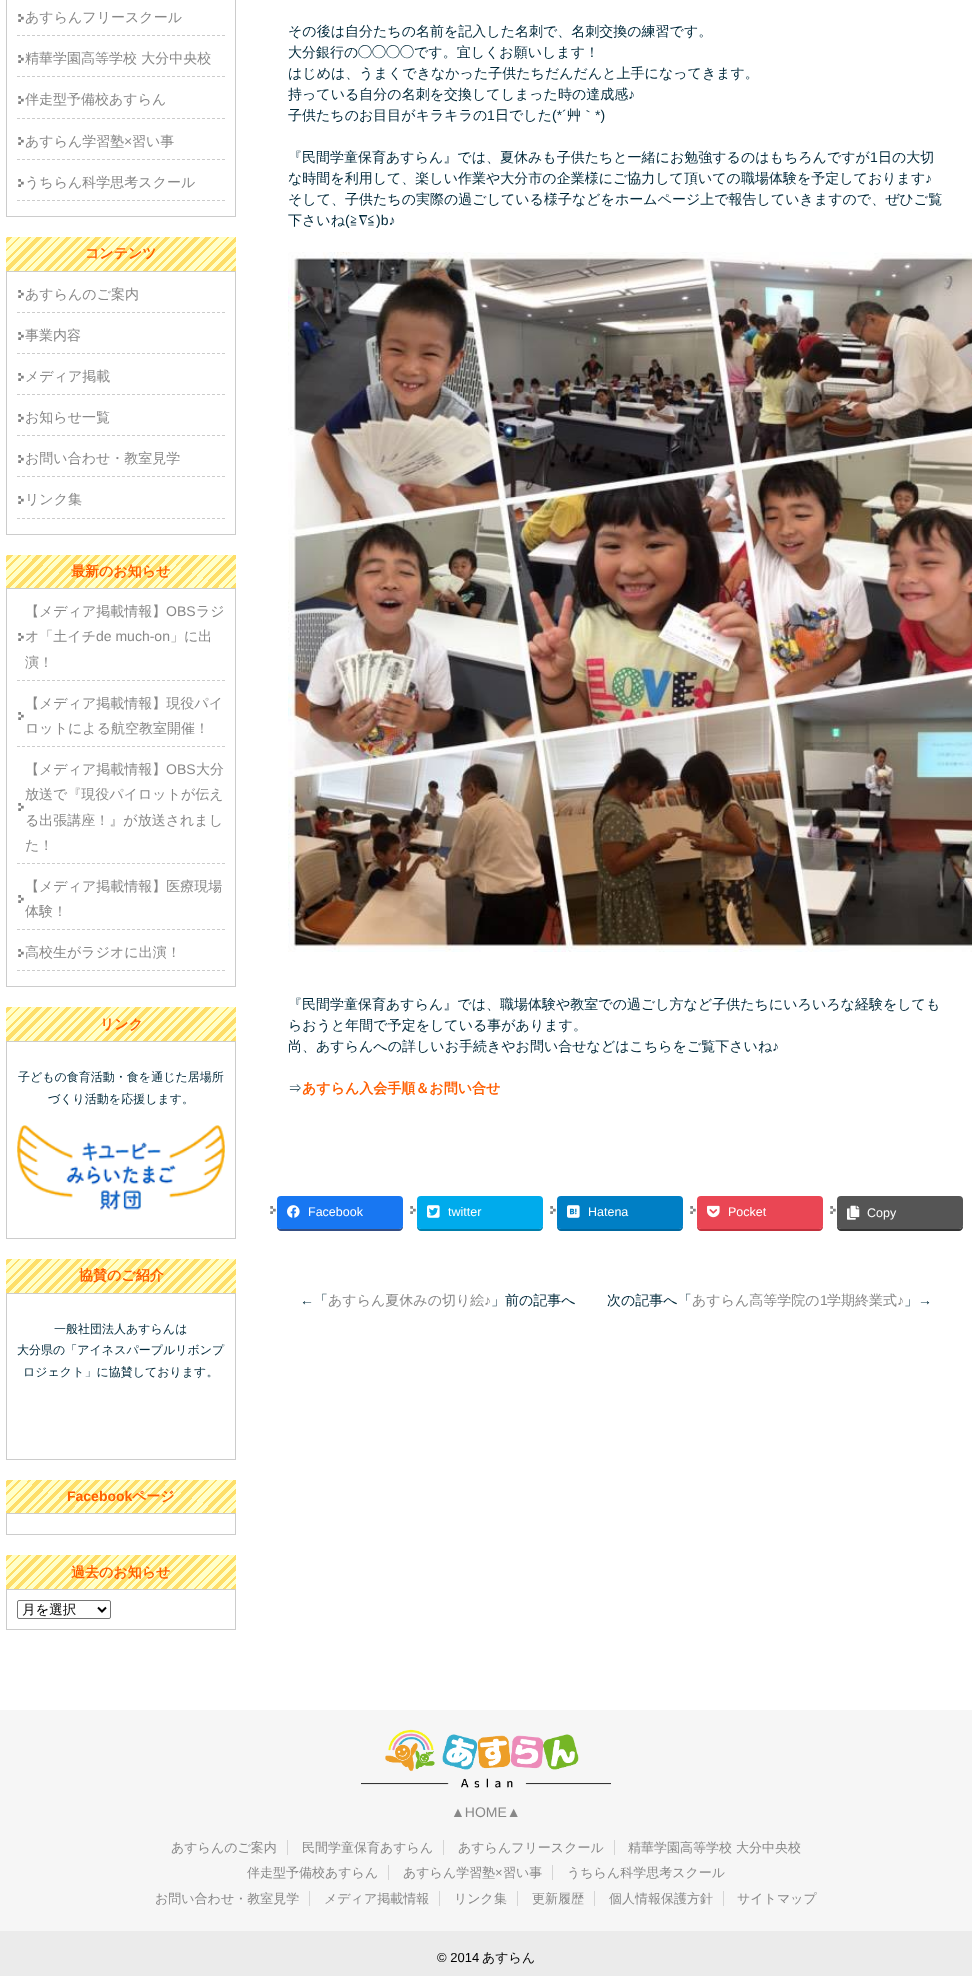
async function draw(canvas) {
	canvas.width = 972;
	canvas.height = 1976;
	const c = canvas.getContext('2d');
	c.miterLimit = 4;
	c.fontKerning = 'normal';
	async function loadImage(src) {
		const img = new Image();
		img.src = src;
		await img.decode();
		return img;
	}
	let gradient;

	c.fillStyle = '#fff';
	c.fillRect(0, 0, 972, 1976);
	c.strokeStyle = '#ccc';
	c.strokeRect(6.5, -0.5, 229, 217);
	c.drawImage(await loadImage('img1.png'), 18, 14, 6, 8);
	c.beginPath();
	c.moveTo(17, 35.5);
	c.lineTo(225, 35.5);
	c.setLineDash([3, 2]);
	c.stroke();
	c.font = '500 14px WenQuanYi Zen Hei';
	c.fillStyle = '#888';
	c.fillText('あすらんフリースクール', 25, 22);
	c.drawImage(await loadImage('img1.png'), 18, 55, 6, 8);
	c.beginPath();
	c.moveTo(17, 76.5);
	c.lineTo(225, 76.5);
	c.stroke();
	c.fillText('精華学園高等学校 大分中央校', 25, 63);
	c.drawImage(await loadImage('img1.png'), 18, 96, 6, 8);
	c.beginPath();
	c.moveTo(17, 118.5);
	c.lineTo(225, 118.5);
	c.stroke();
	c.fillText('伴走型予備校あすらん', 25, 104);
	c.drawImage(await loadImage('img1.png'), 18, 137, 6, 8);
	c.beginPath();
	c.moveTo(17, 159.5);
	c.lineTo(225, 159.5);
	c.stroke();
	c.fillText('あすらん学習塾', 25, 146);
	c.font = '14px Liberation Sans';
	c.fillText('×', 124, 146);
	c.font = '500 14px WenQuanYi Zen Hei';
	c.fillText('習い事', 132, 146);
	c.drawImage(await loadImage('img1.png'), 18, 179, 6, 8);
	c.beginPath();
	c.moveTo(17, 200.5);
	c.lineTo(225, 200.5);
	c.stroke();
	c.fillText('うちらん科学思考スクール', 25, 187);
	gradient = c.createLinearGradient(187, 320, 53, 186);
	gradient.addColorStop(0, '#fede69');
	gradient.addColorStop(0.02, '#fede69');
	gradient.addColorStop(0.02, '#ffffc9');
	gradient.addColorStop(0.04, '#ffffc9');
	gradient.addColorStop(0.04, '#fede69');
	gradient.addColorStop(0.05, '#fede69');
	gradient.addColorStop(0.05, '#ffffc9');
	gradient.addColorStop(0.07, '#ffffc9');
	gradient.addColorStop(0.07, '#fede69');
	gradient.addColorStop(0.09, '#fede69');
	gradient.addColorStop(0.09, '#ffffc9');
	gradient.addColorStop(0.11, '#ffffc9');
	gradient.addColorStop(0.11, '#fede69');
	gradient.addColorStop(0.13, '#fede69');
	gradient.addColorStop(0.13, '#ffffc9');
	gradient.addColorStop(0.15, '#ffffc9');
	gradient.addColorStop(0.15, '#fede69');
	gradient.addColorStop(0.16, '#fede69');
	gradient.addColorStop(0.16, '#ffffc9');
	gradient.addColorStop(0.19, '#ffffc9');
	gradient.addColorStop(0.19, '#fede69');
	gradient.addColorStop(0.2, '#fede69');
	gradient.addColorStop(0.2, '#ffffc9');
	gradient.addColorStop(0.22, '#ffffc9');
	gradient.addColorStop(0.22, '#fede69');
	gradient.addColorStop(0.24, '#fede69');
	gradient.addColorStop(0.24, '#ffffc9');
	gradient.addColorStop(0.26, '#ffffc9');
	gradient.addColorStop(0.26, '#fede69');
	gradient.addColorStop(0.28, '#fede69');
	gradient.addColorStop(0.28, '#ffffc9');
	gradient.addColorStop(0.3, '#ffffc9');
	gradient.addColorStop(0.3, '#fede69');
	gradient.addColorStop(0.31, '#fede69');
	gradient.addColorStop(0.31, '#ffffc9');
	gradient.addColorStop(0.33, '#ffffc9');
	gradient.addColorStop(0.33, '#fede69');
	gradient.addColorStop(0.35, '#fede69');
	gradient.addColorStop(0.35, '#ffffc9');
	gradient.addColorStop(0.37, '#ffffc9');
	gradient.addColorStop(0.37, '#fede69');
	gradient.addColorStop(0.39, '#fede69');
	gradient.addColorStop(0.39, '#ffffc9');
	gradient.addColorStop(0.41, '#ffffc9');
	gradient.addColorStop(0.41, '#fede69');
	gradient.addColorStop(0.42, '#fede69');
	gradient.addColorStop(0.42, '#ffffc9');
	gradient.addColorStop(0.44, '#ffffc9');
	gradient.addColorStop(0.44, '#fede69');
	gradient.addColorStop(0.46, '#fede69');
	gradient.addColorStop(0.46, '#ffffc9');
	gradient.addColorStop(0.48, '#ffffc9');
	gradient.addColorStop(0.48, '#fede69');
	gradient.addColorStop(0.5, '#fede69');
	gradient.addColorStop(0.5, '#ffffc9');
	gradient.addColorStop(0.52, '#ffffc9');
	gradient.addColorStop(0.52, '#fede69');
	gradient.addColorStop(0.53, '#fede69');
	gradient.addColorStop(0.53, '#ffffc9');
	gradient.addColorStop(0.56, '#ffffc9');
	gradient.addColorStop(0.56, '#fede69');
	gradient.addColorStop(0.57, '#fede69');
	gradient.addColorStop(0.57, '#ffffc9');
	gradient.addColorStop(0.59, '#ffffc9');
	gradient.addColorStop(0.59, '#fede69');
	gradient.addColorStop(0.61, '#fede69');
	gradient.addColorStop(0.61, '#ffffc9');
	gradient.addColorStop(0.63, '#ffffc9');
	gradient.addColorStop(0.63, '#fede69');
	gradient.addColorStop(0.65, '#fede69');
	gradient.addColorStop(0.65, '#ffffc9');
	gradient.addColorStop(0.67, '#ffffc9');
	gradient.addColorStop(0.67, '#fede69');
	gradient.addColorStop(0.68, '#fede69');
	gradient.addColorStop(0.68, '#ffffc9');
	gradient.addColorStop(0.7, '#ffffc9');
	gradient.addColorStop(0.7, '#fede69');
	gradient.addColorStop(0.72, '#fede69');
	gradient.addColorStop(0.72, '#ffffc9');
	gradient.addColorStop(0.74, '#ffffc9');
	gradient.addColorStop(0.74, '#fede69');
	gradient.addColorStop(0.76, '#fede69');
	gradient.addColorStop(0.76, '#ffffc9');
	gradient.addColorStop(0.78, '#ffffc9');
	gradient.addColorStop(0.78, '#fede69');
	gradient.addColorStop(0.79, '#fede69');
	gradient.addColorStop(0.79, '#ffffc9');
	gradient.addColorStop(0.81, '#ffffc9');
	gradient.addColorStop(0.81, '#fede69');
	gradient.addColorStop(0.83, '#fede69');
	gradient.addColorStop(0.83, '#ffffc9');
	gradient.addColorStop(0.85, '#ffffc9');
	gradient.addColorStop(0.85, '#fede69');
	gradient.addColorStop(0.87, '#fede69');
	gradient.addColorStop(0.87, '#ffffc9');
	gradient.addColorStop(0.89, '#ffffc9');
	gradient.addColorStop(0.89, '#fede69');
	gradient.addColorStop(0.9, '#fede69');
	gradient.addColorStop(0.9, '#ffffc9');
	gradient.addColorStop(0.93, '#ffffc9');
	gradient.addColorStop(0.93, '#fede69');
	gradient.addColorStop(0.94, '#fede69');
	gradient.addColorStop(0.94, '#ffffc9');
	gradient.addColorStop(0.96, '#ffffc9');
	gradient.addColorStop(0.96, '#fede69');
	gradient.addColorStop(0.98, '#fede69');
	gradient.addColorStop(0.98, '#ffffc9');
	gradient.addColorStop(1, '#ffffc9');
	c.fillStyle = gradient;
	c.fillRect(6, 237, 230, 34);
	c.font = 'bold 14px WenQuanYi Zen Hei';
	c.fillStyle = '#ff5e00';
	c.fillText('コンテンツ', 85, 258);
	c.setLineDash([]);
	c.strokeRect(6.5, 271.5, 229, 263);
	c.drawImage(await loadImage('img1.png'), 18, 290, 6, 8);
	c.beginPath();
	c.moveTo(17, 312.5);
	c.lineTo(225, 312.5);
	c.setLineDash([3, 2]);
	c.stroke();
	c.font = '500 14px WenQuanYi Zen Hei';
	c.fillStyle = '#888';
	c.fillText('あすらんのご案内', 25, 299);
	c.drawImage(await loadImage('img1.png'), 18, 332, 6, 8);
	c.beginPath();
	c.moveTo(17, 353.5);
	c.lineTo(225, 353.5);
	c.stroke();
	c.fillText('事業内容', 25, 340);
	c.drawImage(await loadImage('img1.png'), 18, 373, 6, 8);
	c.beginPath();
	c.moveTo(17, 394.5);
	c.lineTo(225, 394.5);
	c.stroke();
	c.fillText('メディア掲載', 25, 381);
	c.drawImage(await loadImage('img1.png'), 18, 414, 6, 8);
	c.beginPath();
	c.moveTo(17, 435.5);
	c.lineTo(225, 435.5);
	c.stroke();
	c.fillText('お知らせ一覧', 25, 422);
	c.drawImage(await loadImage('img1.png'), 18, 455, 6, 8);
	c.beginPath();
	c.moveTo(17, 476.5);
	c.lineTo(225, 476.5);
	c.stroke();
	c.fillText('お問い合わせ・教室見学', 25, 463);
	c.drawImage(await loadImage('img1.png'), 18, 496, 6, 8);
	c.beginPath();
	c.moveTo(17, 518.5);
	c.lineTo(225, 518.5);
	c.stroke();
	c.fillText('リンク集', 25, 504);
	gradient = c.createLinearGradient(187, 637, 53, 504);
	gradient.addColorStop(0, '#fede69');
	gradient.addColorStop(0.02, '#fede69');
	gradient.addColorStop(0.02, '#ffffc9');
	gradient.addColorStop(0.04, '#ffffc9');
	gradient.addColorStop(0.04, '#fede69');
	gradient.addColorStop(0.05, '#fede69');
	gradient.addColorStop(0.05, '#ffffc9');
	gradient.addColorStop(0.07, '#ffffc9');
	gradient.addColorStop(0.07, '#fede69');
	gradient.addColorStop(0.09, '#fede69');
	gradient.addColorStop(0.09, '#ffffc9');
	gradient.addColorStop(0.11, '#ffffc9');
	gradient.addColorStop(0.11, '#fede69');
	gradient.addColorStop(0.13, '#fede69');
	gradient.addColorStop(0.13, '#ffffc9');
	gradient.addColorStop(0.15, '#ffffc9');
	gradient.addColorStop(0.15, '#fede69');
	gradient.addColorStop(0.16, '#fede69');
	gradient.addColorStop(0.16, '#ffffc9');
	gradient.addColorStop(0.19, '#ffffc9');
	gradient.addColorStop(0.19, '#fede69');
	gradient.addColorStop(0.2, '#fede69');
	gradient.addColorStop(0.2, '#ffffc9');
	gradient.addColorStop(0.22, '#ffffc9');
	gradient.addColorStop(0.22, '#fede69');
	gradient.addColorStop(0.24, '#fede69');
	gradient.addColorStop(0.24, '#ffffc9');
	gradient.addColorStop(0.26, '#ffffc9');
	gradient.addColorStop(0.26, '#fede69');
	gradient.addColorStop(0.28, '#fede69');
	gradient.addColorStop(0.28, '#ffffc9');
	gradient.addColorStop(0.3, '#ffffc9');
	gradient.addColorStop(0.3, '#fede69');
	gradient.addColorStop(0.31, '#fede69');
	gradient.addColorStop(0.31, '#ffffc9');
	gradient.addColorStop(0.33, '#ffffc9');
	gradient.addColorStop(0.33, '#fede69');
	gradient.addColorStop(0.35, '#fede69');
	gradient.addColorStop(0.35, '#ffffc9');
	gradient.addColorStop(0.37, '#ffffc9');
	gradient.addColorStop(0.37, '#fede69');
	gradient.addColorStop(0.39, '#fede69');
	gradient.addColorStop(0.39, '#ffffc9');
	gradient.addColorStop(0.41, '#ffffc9');
	gradient.addColorStop(0.41, '#fede69');
	gradient.addColorStop(0.42, '#fede69');
	gradient.addColorStop(0.42, '#ffffc9');
	gradient.addColorStop(0.44, '#ffffc9');
	gradient.addColorStop(0.44, '#fede69');
	gradient.addColorStop(0.46, '#fede69');
	gradient.addColorStop(0.46, '#ffffc9');
	gradient.addColorStop(0.48, '#ffffc9');
	gradient.addColorStop(0.48, '#fede69');
	gradient.addColorStop(0.5, '#fede69');
	gradient.addColorStop(0.5, '#ffffc9');
	gradient.addColorStop(0.52, '#ffffc9');
	gradient.addColorStop(0.52, '#fede69');
	gradient.addColorStop(0.53, '#fede69');
	gradient.addColorStop(0.53, '#ffffc9');
	gradient.addColorStop(0.56, '#ffffc9');
	gradient.addColorStop(0.56, '#fede69');
	gradient.addColorStop(0.57, '#fede69');
	gradient.addColorStop(0.57, '#ffffc9');
	gradient.addColorStop(0.59, '#ffffc9');
	gradient.addColorStop(0.59, '#fede69');
	gradient.addColorStop(0.61, '#fede69');
	gradient.addColorStop(0.61, '#ffffc9');
	gradient.addColorStop(0.63, '#ffffc9');
	gradient.addColorStop(0.63, '#fede69');
	gradient.addColorStop(0.65, '#fede69');
	gradient.addColorStop(0.65, '#ffffc9');
	gradient.addColorStop(0.67, '#ffffc9');
	gradient.addColorStop(0.67, '#fede69');
	gradient.addColorStop(0.68, '#fede69');
	gradient.addColorStop(0.68, '#ffffc9');
	gradient.addColorStop(0.7, '#ffffc9');
	gradient.addColorStop(0.7, '#fede69');
	gradient.addColorStop(0.72, '#fede69');
	gradient.addColorStop(0.72, '#ffffc9');
	gradient.addColorStop(0.74, '#ffffc9');
	gradient.addColorStop(0.74, '#fede69');
	gradient.addColorStop(0.76, '#fede69');
	gradient.addColorStop(0.76, '#ffffc9');
	gradient.addColorStop(0.78, '#ffffc9');
	gradient.addColorStop(0.78, '#fede69');
	gradient.addColorStop(0.79, '#fede69');
	gradient.addColorStop(0.79, '#ffffc9');
	gradient.addColorStop(0.81, '#ffffc9');
	gradient.addColorStop(0.81, '#fede69');
	gradient.addColorStop(0.83, '#fede69');
	gradient.addColorStop(0.83, '#ffffc9');
	gradient.addColorStop(0.85, '#ffffc9');
	gradient.addColorStop(0.85, '#fede69');
	gradient.addColorStop(0.87, '#fede69');
	gradient.addColorStop(0.87, '#ffffc9');
	gradient.addColorStop(0.89, '#ffffc9');
	gradient.addColorStop(0.89, '#fede69');
	gradient.addColorStop(0.9, '#fede69');
	gradient.addColorStop(0.9, '#ffffc9');
	gradient.addColorStop(0.93, '#ffffc9');
	gradient.addColorStop(0.93, '#fede69');
	gradient.addColorStop(0.94, '#fede69');
	gradient.addColorStop(0.94, '#ffffc9');
	gradient.addColorStop(0.96, '#ffffc9');
	gradient.addColorStop(0.96, '#fede69');
	gradient.addColorStop(0.98, '#fede69');
	gradient.addColorStop(0.98, '#ffffc9');
	gradient.addColorStop(1, '#ffffc9');
	c.fillStyle = gradient;
	c.fillRect(6, 555, 230, 33);
	c.font = 'bold 14px WenQuanYi Zen Hei';
	c.fillStyle = '#ff5e00';
	c.fillText('最新のお知らせ', 71, 576);
	c.setLineDash([]);
	c.strokeRect(6.5, 588.5, 229, 398);
	c.drawImage(await loadImage('img1.png'), 18, 633, 6, 8);
	c.beginPath();
	c.moveTo(17, 680.5);
	c.lineTo(225, 680.5);
	c.setLineDash([3, 2]);
	c.stroke();
	c.font = '500 14px WenQuanYi Zen Hei';
	c.fillStyle = '#888';
	c.fillText('【メディア掲載情報】', 25, 616);
	c.font = '14px Liberation Sans';
	c.fillText('OBS', 166, 616);
	c.font = '500 14px WenQuanYi Zen Hei';
	c.fillText('ラジ', 196, 616);
	c.fillText('オ「土イチ', 25, 641);
	c.font = '14px Liberation Sans';
	c.fillText('de much-on', 96, 641);
	c.font = '500 14px WenQuanYi Zen Hei';
	c.fillText('」に出', 170, 641);
	c.fillText('演！', 25, 667);
	c.drawImage(await loadImage('img1.png'), 18, 712, 6, 8);
	c.beginPath();
	c.moveTo(17, 746.5);
	c.lineTo(225, 746.5);
	c.stroke();
	c.fillText('【メディア掲載情報】現役パイ', 25, 708);
	c.fillText('ロットによる航空教室開催！', 25, 733);
	c.drawImage(await loadImage('img1.png'), 18, 803, 6, 8);
	c.beginPath();
	c.moveTo(17, 863.5);
	c.lineTo(225, 863.5);
	c.stroke();
	c.fillText('【メディア掲載情報】', 25, 774);
	c.font = '14px Liberation Sans';
	c.fillText('OBS', 166, 774);
	c.font = '500 14px WenQuanYi Zen Hei';
	for (const [text, x, y] of [
		['大分', 196, 774],
		['放送で『現役パイロットが伝え', 25, 799],
		['る出張講座！』が放送されまし', 25, 825],
		['た！', 25, 850],
	]) {
		c.fillText(text, x, y);
	}
	c.drawImage(await loadImage('img1.png'), 18, 895, 6, 8);
	c.beginPath();
	c.moveTo(17, 929.5);
	c.lineTo(225, 929.5);
	c.stroke();
	c.fillText('【メディア掲載情報】医療現場', 25, 891);
	c.fillText('体験！', 25, 916);
	c.drawImage(await loadImage('img1.png'), 18, 949, 6, 8);
	c.beginPath();
	c.moveTo(17, 970.5);
	c.lineTo(225, 970.5);
	c.stroke();
	c.fillText('高校生がラジオに出演！', 25, 957);
	gradient = c.createLinearGradient(187, 1090, 53, 956);
	gradient.addColorStop(0, '#fede69');
	gradient.addColorStop(0.02, '#fede69');
	gradient.addColorStop(0.02, '#ffffc9');
	gradient.addColorStop(0.04, '#ffffc9');
	gradient.addColorStop(0.04, '#fede69');
	gradient.addColorStop(0.05, '#fede69');
	gradient.addColorStop(0.05, '#ffffc9');
	gradient.addColorStop(0.07, '#ffffc9');
	gradient.addColorStop(0.07, '#fede69');
	gradient.addColorStop(0.09, '#fede69');
	gradient.addColorStop(0.09, '#ffffc9');
	gradient.addColorStop(0.11, '#ffffc9');
	gradient.addColorStop(0.11, '#fede69');
	gradient.addColorStop(0.13, '#fede69');
	gradient.addColorStop(0.13, '#ffffc9');
	gradient.addColorStop(0.15, '#ffffc9');
	gradient.addColorStop(0.15, '#fede69');
	gradient.addColorStop(0.16, '#fede69');
	gradient.addColorStop(0.16, '#ffffc9');
	gradient.addColorStop(0.19, '#ffffc9');
	gradient.addColorStop(0.19, '#fede69');
	gradient.addColorStop(0.2, '#fede69');
	gradient.addColorStop(0.2, '#ffffc9');
	gradient.addColorStop(0.22, '#ffffc9');
	gradient.addColorStop(0.22, '#fede69');
	gradient.addColorStop(0.24, '#fede69');
	gradient.addColorStop(0.24, '#ffffc9');
	gradient.addColorStop(0.26, '#ffffc9');
	gradient.addColorStop(0.26, '#fede69');
	gradient.addColorStop(0.28, '#fede69');
	gradient.addColorStop(0.28, '#ffffc9');
	gradient.addColorStop(0.3, '#ffffc9');
	gradient.addColorStop(0.3, '#fede69');
	gradient.addColorStop(0.31, '#fede69');
	gradient.addColorStop(0.31, '#ffffc9');
	gradient.addColorStop(0.33, '#ffffc9');
	gradient.addColorStop(0.33, '#fede69');
	gradient.addColorStop(0.35, '#fede69');
	gradient.addColorStop(0.35, '#ffffc9');
	gradient.addColorStop(0.37, '#ffffc9');
	gradient.addColorStop(0.37, '#fede69');
	gradient.addColorStop(0.39, '#fede69');
	gradient.addColorStop(0.39, '#ffffc9');
	gradient.addColorStop(0.41, '#ffffc9');
	gradient.addColorStop(0.41, '#fede69');
	gradient.addColorStop(0.42, '#fede69');
	gradient.addColorStop(0.42, '#ffffc9');
	gradient.addColorStop(0.44, '#ffffc9');
	gradient.addColorStop(0.44, '#fede69');
	gradient.addColorStop(0.46, '#fede69');
	gradient.addColorStop(0.46, '#ffffc9');
	gradient.addColorStop(0.48, '#ffffc9');
	gradient.addColorStop(0.48, '#fede69');
	gradient.addColorStop(0.5, '#fede69');
	gradient.addColorStop(0.5, '#ffffc9');
	gradient.addColorStop(0.52, '#ffffc9');
	gradient.addColorStop(0.52, '#fede69');
	gradient.addColorStop(0.53, '#fede69');
	gradient.addColorStop(0.53, '#ffffc9');
	gradient.addColorStop(0.56, '#ffffc9');
	gradient.addColorStop(0.56, '#fede69');
	gradient.addColorStop(0.57, '#fede69');
	gradient.addColorStop(0.57, '#ffffc9');
	gradient.addColorStop(0.59, '#ffffc9');
	gradient.addColorStop(0.59, '#fede69');
	gradient.addColorStop(0.61, '#fede69');
	gradient.addColorStop(0.61, '#ffffc9');
	gradient.addColorStop(0.63, '#ffffc9');
	gradient.addColorStop(0.63, '#fede69');
	gradient.addColorStop(0.65, '#fede69');
	gradient.addColorStop(0.65, '#ffffc9');
	gradient.addColorStop(0.67, '#ffffc9');
	gradient.addColorStop(0.67, '#fede69');
	gradient.addColorStop(0.68, '#fede69');
	gradient.addColorStop(0.68, '#ffffc9');
	gradient.addColorStop(0.7, '#ffffc9');
	gradient.addColorStop(0.7, '#fede69');
	gradient.addColorStop(0.72, '#fede69');
	gradient.addColorStop(0.72, '#ffffc9');
	gradient.addColorStop(0.74, '#ffffc9');
	gradient.addColorStop(0.74, '#fede69');
	gradient.addColorStop(0.76, '#fede69');
	gradient.addColorStop(0.76, '#ffffc9');
	gradient.addColorStop(0.78, '#ffffc9');
	gradient.addColorStop(0.78, '#fede69');
	gradient.addColorStop(0.79, '#fede69');
	gradient.addColorStop(0.79, '#ffffc9');
	gradient.addColorStop(0.81, '#ffffc9');
	gradient.addColorStop(0.81, '#fede69');
	gradient.addColorStop(0.83, '#fede69');
	gradient.addColorStop(0.83, '#ffffc9');
	gradient.addColorStop(0.85, '#ffffc9');
	gradient.addColorStop(0.85, '#fede69');
	gradient.addColorStop(0.87, '#fede69');
	gradient.addColorStop(0.87, '#ffffc9');
	gradient.addColorStop(0.89, '#ffffc9');
	gradient.addColorStop(0.89, '#fede69');
	gradient.addColorStop(0.9, '#fede69');
	gradient.addColorStop(0.9, '#ffffc9');
	gradient.addColorStop(0.93, '#ffffc9');
	gradient.addColorStop(0.93, '#fede69');
	gradient.addColorStop(0.94, '#fede69');
	gradient.addColorStop(0.94, '#ffffc9');
	gradient.addColorStop(0.96, '#ffffc9');
	gradient.addColorStop(0.96, '#fede69');
	gradient.addColorStop(0.98, '#fede69');
	gradient.addColorStop(0.98, '#ffffc9');
	gradient.addColorStop(1, '#ffffc9');
	c.fillStyle = gradient;
	c.fillRect(6, 1007, 230, 34);
	c.font = 'bold 14px WenQuanYi Zen Hei';
	c.fillStyle = '#ff5e00';
	c.fillText('リンク', 100, 1029);
	c.setLineDash([]);
	c.strokeRect(6.5, 1041.5, 229, 197);
	c.font = '500 12px WenQuanYi Zen Hei';
	c.fillStyle = '#00293b';
	c.fillText('子どもの食育活動・食を通じた居場所', 18, 1081);
	c.fillText('づくり活動を応援します。', 48, 1103);
	c.drawImage(await loadImage('img2.png'), 17, 1125, 208, 85);
	gradient = c.createLinearGradient(187, 1342, 53, 1208);
	gradient.addColorStop(0, '#fede69');
	gradient.addColorStop(0.02, '#fede69');
	gradient.addColorStop(0.02, '#ffffc9');
	gradient.addColorStop(0.04, '#ffffc9');
	gradient.addColorStop(0.04, '#fede69');
	gradient.addColorStop(0.05, '#fede69');
	gradient.addColorStop(0.05, '#ffffc9');
	gradient.addColorStop(0.07, '#ffffc9');
	gradient.addColorStop(0.07, '#fede69');
	gradient.addColorStop(0.09, '#fede69');
	gradient.addColorStop(0.09, '#ffffc9');
	gradient.addColorStop(0.11, '#ffffc9');
	gradient.addColorStop(0.11, '#fede69');
	gradient.addColorStop(0.13, '#fede69');
	gradient.addColorStop(0.13, '#ffffc9');
	gradient.addColorStop(0.15, '#ffffc9');
	gradient.addColorStop(0.15, '#fede69');
	gradient.addColorStop(0.16, '#fede69');
	gradient.addColorStop(0.16, '#ffffc9');
	gradient.addColorStop(0.19, '#ffffc9');
	gradient.addColorStop(0.19, '#fede69');
	gradient.addColorStop(0.2, '#fede69');
	gradient.addColorStop(0.2, '#ffffc9');
	gradient.addColorStop(0.22, '#ffffc9');
	gradient.addColorStop(0.22, '#fede69');
	gradient.addColorStop(0.24, '#fede69');
	gradient.addColorStop(0.24, '#ffffc9');
	gradient.addColorStop(0.26, '#ffffc9');
	gradient.addColorStop(0.26, '#fede69');
	gradient.addColorStop(0.28, '#fede69');
	gradient.addColorStop(0.28, '#ffffc9');
	gradient.addColorStop(0.3, '#ffffc9');
	gradient.addColorStop(0.3, '#fede69');
	gradient.addColorStop(0.31, '#fede69');
	gradient.addColorStop(0.31, '#ffffc9');
	gradient.addColorStop(0.33, '#ffffc9');
	gradient.addColorStop(0.33, '#fede69');
	gradient.addColorStop(0.35, '#fede69');
	gradient.addColorStop(0.35, '#ffffc9');
	gradient.addColorStop(0.37, '#ffffc9');
	gradient.addColorStop(0.37, '#fede69');
	gradient.addColorStop(0.39, '#fede69');
	gradient.addColorStop(0.39, '#ffffc9');
	gradient.addColorStop(0.41, '#ffffc9');
	gradient.addColorStop(0.41, '#fede69');
	gradient.addColorStop(0.42, '#fede69');
	gradient.addColorStop(0.42, '#ffffc9');
	gradient.addColorStop(0.44, '#ffffc9');
	gradient.addColorStop(0.44, '#fede69');
	gradient.addColorStop(0.46, '#fede69');
	gradient.addColorStop(0.46, '#ffffc9');
	gradient.addColorStop(0.48, '#ffffc9');
	gradient.addColorStop(0.48, '#fede69');
	gradient.addColorStop(0.5, '#fede69');
	gradient.addColorStop(0.5, '#ffffc9');
	gradient.addColorStop(0.52, '#ffffc9');
	gradient.addColorStop(0.52, '#fede69');
	gradient.addColorStop(0.53, '#fede69');
	gradient.addColorStop(0.53, '#ffffc9');
	gradient.addColorStop(0.56, '#ffffc9');
	gradient.addColorStop(0.56, '#fede69');
	gradient.addColorStop(0.57, '#fede69');
	gradient.addColorStop(0.57, '#ffffc9');
	gradient.addColorStop(0.59, '#ffffc9');
	gradient.addColorStop(0.59, '#fede69');
	gradient.addColorStop(0.61, '#fede69');
	gradient.addColorStop(0.61, '#ffffc9');
	gradient.addColorStop(0.63, '#ffffc9');
	gradient.addColorStop(0.63, '#fede69');
	gradient.addColorStop(0.65, '#fede69');
	gradient.addColorStop(0.65, '#ffffc9');
	gradient.addColorStop(0.67, '#ffffc9');
	gradient.addColorStop(0.67, '#fede69');
	gradient.addColorStop(0.68, '#fede69');
	gradient.addColorStop(0.68, '#ffffc9');
	gradient.addColorStop(0.7, '#ffffc9');
	gradient.addColorStop(0.7, '#fede69');
	gradient.addColorStop(0.72, '#fede69');
	gradient.addColorStop(0.72, '#ffffc9');
	gradient.addColorStop(0.74, '#ffffc9');
	gradient.addColorStop(0.74, '#fede69');
	gradient.addColorStop(0.76, '#fede69');
	gradient.addColorStop(0.76, '#ffffc9');
	gradient.addColorStop(0.78, '#ffffc9');
	gradient.addColorStop(0.78, '#fede69');
	gradient.addColorStop(0.79, '#fede69');
	gradient.addColorStop(0.79, '#ffffc9');
	gradient.addColorStop(0.81, '#ffffc9');
	gradient.addColorStop(0.81, '#fede69');
	gradient.addColorStop(0.83, '#fede69');
	gradient.addColorStop(0.83, '#ffffc9');
	gradient.addColorStop(0.85, '#ffffc9');
	gradient.addColorStop(0.85, '#fede69');
	gradient.addColorStop(0.87, '#fede69');
	gradient.addColorStop(0.87, '#ffffc9');
	gradient.addColorStop(0.89, '#ffffc9');
	gradient.addColorStop(0.89, '#fede69');
	gradient.addColorStop(0.9, '#fede69');
	gradient.addColorStop(0.9, '#ffffc9');
	gradient.addColorStop(0.93, '#ffffc9');
	gradient.addColorStop(0.93, '#fede69');
	gradient.addColorStop(0.94, '#fede69');
	gradient.addColorStop(0.94, '#ffffc9');
	gradient.addColorStop(0.96, '#ffffc9');
	gradient.addColorStop(0.96, '#fede69');
	gradient.addColorStop(0.98, '#fede69');
	gradient.addColorStop(0.98, '#ffffc9');
	gradient.addColorStop(1, '#ffffc9');
	c.fillStyle = gradient;
	c.fillRect(6, 1259, 230, 34);
	c.font = 'bold 14px WenQuanYi Zen Hei';
	c.fillStyle = '#ff5e00';
	c.fillText('協賛のご紹介', 79, 1280);
	c.strokeRect(6.5, 1293.5, 229, 166);
	c.font = '500 12px WenQuanYi Zen Hei';
	c.fillStyle = '#00293b';
	for (const [text, x, y] of [
		['一般社団法人あすらんは', 54, 1333],
		['大分県の「アイネスパープルリボンプ', 17, 1354],
		['ロジェクト」に協賛しております。', 23, 1376],
	]) {
		c.fillText(text, x, y);
	}
	gradient = c.createLinearGradient(187, 1562, 53, 1429);
	gradient.addColorStop(0, '#fede69');
	gradient.addColorStop(0.02, '#fede69');
	gradient.addColorStop(0.02, '#ffffc9');
	gradient.addColorStop(0.04, '#ffffc9');
	gradient.addColorStop(0.04, '#fede69');
	gradient.addColorStop(0.05, '#fede69');
	gradient.addColorStop(0.05, '#ffffc9');
	gradient.addColorStop(0.07, '#ffffc9');
	gradient.addColorStop(0.07, '#fede69');
	gradient.addColorStop(0.09, '#fede69');
	gradient.addColorStop(0.09, '#ffffc9');
	gradient.addColorStop(0.11, '#ffffc9');
	gradient.addColorStop(0.11, '#fede69');
	gradient.addColorStop(0.13, '#fede69');
	gradient.addColorStop(0.13, '#ffffc9');
	gradient.addColorStop(0.15, '#ffffc9');
	gradient.addColorStop(0.15, '#fede69');
	gradient.addColorStop(0.16, '#fede69');
	gradient.addColorStop(0.16, '#ffffc9');
	gradient.addColorStop(0.19, '#ffffc9');
	gradient.addColorStop(0.19, '#fede69');
	gradient.addColorStop(0.2, '#fede69');
	gradient.addColorStop(0.2, '#ffffc9');
	gradient.addColorStop(0.22, '#ffffc9');
	gradient.addColorStop(0.22, '#fede69');
	gradient.addColorStop(0.24, '#fede69');
	gradient.addColorStop(0.24, '#ffffc9');
	gradient.addColorStop(0.26, '#ffffc9');
	gradient.addColorStop(0.26, '#fede69');
	gradient.addColorStop(0.28, '#fede69');
	gradient.addColorStop(0.28, '#ffffc9');
	gradient.addColorStop(0.3, '#ffffc9');
	gradient.addColorStop(0.3, '#fede69');
	gradient.addColorStop(0.31, '#fede69');
	gradient.addColorStop(0.31, '#ffffc9');
	gradient.addColorStop(0.33, '#ffffc9');
	gradient.addColorStop(0.33, '#fede69');
	gradient.addColorStop(0.35, '#fede69');
	gradient.addColorStop(0.35, '#ffffc9');
	gradient.addColorStop(0.37, '#ffffc9');
	gradient.addColorStop(0.37, '#fede69');
	gradient.addColorStop(0.39, '#fede69');
	gradient.addColorStop(0.39, '#ffffc9');
	gradient.addColorStop(0.41, '#ffffc9');
	gradient.addColorStop(0.41, '#fede69');
	gradient.addColorStop(0.42, '#fede69');
	gradient.addColorStop(0.42, '#ffffc9');
	gradient.addColorStop(0.44, '#ffffc9');
	gradient.addColorStop(0.44, '#fede69');
	gradient.addColorStop(0.46, '#fede69');
	gradient.addColorStop(0.46, '#ffffc9');
	gradient.addColorStop(0.48, '#ffffc9');
	gradient.addColorStop(0.48, '#fede69');
	gradient.addColorStop(0.5, '#fede69');
	gradient.addColorStop(0.5, '#ffffc9');
	gradient.addColorStop(0.52, '#ffffc9');
	gradient.addColorStop(0.52, '#fede69');
	gradient.addColorStop(0.53, '#fede69');
	gradient.addColorStop(0.53, '#ffffc9');
	gradient.addColorStop(0.56, '#ffffc9');
	gradient.addColorStop(0.56, '#fede69');
	gradient.addColorStop(0.57, '#fede69');
	gradient.addColorStop(0.57, '#ffffc9');
	gradient.addColorStop(0.59, '#ffffc9');
	gradient.addColorStop(0.59, '#fede69');
	gradient.addColorStop(0.61, '#fede69');
	gradient.addColorStop(0.61, '#ffffc9');
	gradient.addColorStop(0.63, '#ffffc9');
	gradient.addColorStop(0.63, '#fede69');
	gradient.addColorStop(0.65, '#fede69');
	gradient.addColorStop(0.65, '#ffffc9');
	gradient.addColorStop(0.67, '#ffffc9');
	gradient.addColorStop(0.67, '#fede69');
	gradient.addColorStop(0.68, '#fede69');
	gradient.addColorStop(0.68, '#ffffc9');
	gradient.addColorStop(0.7, '#ffffc9');
	gradient.addColorStop(0.7, '#fede69');
	gradient.addColorStop(0.72, '#fede69');
	gradient.addColorStop(0.72, '#ffffc9');
	gradient.addColorStop(0.74, '#ffffc9');
	gradient.addColorStop(0.74, '#fede69');
	gradient.addColorStop(0.76, '#fede69');
	gradient.addColorStop(0.76, '#ffffc9');
	gradient.addColorStop(0.78, '#ffffc9');
	gradient.addColorStop(0.78, '#fede69');
	gradient.addColorStop(0.79, '#fede69');
	gradient.addColorStop(0.79, '#ffffc9');
	gradient.addColorStop(0.81, '#ffffc9');
	gradient.addColorStop(0.81, '#fede69');
	gradient.addColorStop(0.83, '#fede69');
	gradient.addColorStop(0.83, '#ffffc9');
	gradient.addColorStop(0.85, '#ffffc9');
	gradient.addColorStop(0.85, '#fede69');
	gradient.addColorStop(0.87, '#fede69');
	gradient.addColorStop(0.87, '#ffffc9');
	gradient.addColorStop(0.89, '#ffffc9');
	gradient.addColorStop(0.89, '#fede69');
	gradient.addColorStop(0.9, '#fede69');
	gradient.addColorStop(0.9, '#ffffc9');
	gradient.addColorStop(0.93, '#ffffc9');
	gradient.addColorStop(0.93, '#fede69');
	gradient.addColorStop(0.94, '#fede69');
	gradient.addColorStop(0.94, '#ffffc9');
	gradient.addColorStop(0.96, '#ffffc9');
	gradient.addColorStop(0.96, '#fede69');
	gradient.addColorStop(0.98, '#fede69');
	gradient.addColorStop(0.98, '#ffffc9');
	gradient.addColorStop(1, '#ffffc9');
	c.fillStyle = gradient;
	c.fillRect(6, 1480, 230, 33);
	c.font = 'bold 14px Liberation Sans';
	c.fillStyle = '#ff5e00';
	c.fillText('Facebook', 67, 1501);
	c.font = 'bold 14px WenQuanYi Zen Hei';
	c.fillText('ページ', 132, 1501);
	c.strokeRect(6.5, 1513.5, 229, 21);
	gradient = c.createLinearGradient(187, 1638, 53, 1504);
	gradient.addColorStop(0, '#fede69');
	gradient.addColorStop(0.02, '#fede69');
	gradient.addColorStop(0.02, '#ffffc9');
	gradient.addColorStop(0.04, '#ffffc9');
	gradient.addColorStop(0.04, '#fede69');
	gradient.addColorStop(0.05, '#fede69');
	gradient.addColorStop(0.05, '#ffffc9');
	gradient.addColorStop(0.07, '#ffffc9');
	gradient.addColorStop(0.07, '#fede69');
	gradient.addColorStop(0.09, '#fede69');
	gradient.addColorStop(0.09, '#ffffc9');
	gradient.addColorStop(0.11, '#ffffc9');
	gradient.addColorStop(0.11, '#fede69');
	gradient.addColorStop(0.13, '#fede69');
	gradient.addColorStop(0.13, '#ffffc9');
	gradient.addColorStop(0.15, '#ffffc9');
	gradient.addColorStop(0.15, '#fede69');
	gradient.addColorStop(0.16, '#fede69');
	gradient.addColorStop(0.16, '#ffffc9');
	gradient.addColorStop(0.19, '#ffffc9');
	gradient.addColorStop(0.19, '#fede69');
	gradient.addColorStop(0.2, '#fede69');
	gradient.addColorStop(0.2, '#ffffc9');
	gradient.addColorStop(0.22, '#ffffc9');
	gradient.addColorStop(0.22, '#fede69');
	gradient.addColorStop(0.24, '#fede69');
	gradient.addColorStop(0.24, '#ffffc9');
	gradient.addColorStop(0.26, '#ffffc9');
	gradient.addColorStop(0.26, '#fede69');
	gradient.addColorStop(0.28, '#fede69');
	gradient.addColorStop(0.28, '#ffffc9');
	gradient.addColorStop(0.3, '#ffffc9');
	gradient.addColorStop(0.3, '#fede69');
	gradient.addColorStop(0.31, '#fede69');
	gradient.addColorStop(0.31, '#ffffc9');
	gradient.addColorStop(0.33, '#ffffc9');
	gradient.addColorStop(0.33, '#fede69');
	gradient.addColorStop(0.35, '#fede69');
	gradient.addColorStop(0.35, '#ffffc9');
	gradient.addColorStop(0.37, '#ffffc9');
	gradient.addColorStop(0.37, '#fede69');
	gradient.addColorStop(0.39, '#fede69');
	gradient.addColorStop(0.39, '#ffffc9');
	gradient.addColorStop(0.41, '#ffffc9');
	gradient.addColorStop(0.41, '#fede69');
	gradient.addColorStop(0.42, '#fede69');
	gradient.addColorStop(0.42, '#ffffc9');
	gradient.addColorStop(0.44, '#ffffc9');
	gradient.addColorStop(0.44, '#fede69');
	gradient.addColorStop(0.46, '#fede69');
	gradient.addColorStop(0.46, '#ffffc9');
	gradient.addColorStop(0.48, '#ffffc9');
	gradient.addColorStop(0.48, '#fede69');
	gradient.addColorStop(0.5, '#fede69');
	gradient.addColorStop(0.5, '#ffffc9');
	gradient.addColorStop(0.52, '#ffffc9');
	gradient.addColorStop(0.52, '#fede69');
	gradient.addColorStop(0.53, '#fede69');
	gradient.addColorStop(0.53, '#ffffc9');
	gradient.addColorStop(0.56, '#ffffc9');
	gradient.addColorStop(0.56, '#fede69');
	gradient.addColorStop(0.57, '#fede69');
	gradient.addColorStop(0.57, '#ffffc9');
	gradient.addColorStop(0.59, '#ffffc9');
	gradient.addColorStop(0.59, '#fede69');
	gradient.addColorStop(0.61, '#fede69');
	gradient.addColorStop(0.61, '#ffffc9');
	gradient.addColorStop(0.63, '#ffffc9');
	gradient.addColorStop(0.63, '#fede69');
	gradient.addColorStop(0.65, '#fede69');
	gradient.addColorStop(0.65, '#ffffc9');
	gradient.addColorStop(0.67, '#ffffc9');
	gradient.addColorStop(0.67, '#fede69');
	gradient.addColorStop(0.68, '#fede69');
	gradient.addColorStop(0.68, '#ffffc9');
	gradient.addColorStop(0.7, '#ffffc9');
	gradient.addColorStop(0.7, '#fede69');
	gradient.addColorStop(0.72, '#fede69');
	gradient.addColorStop(0.72, '#ffffc9');
	gradient.addColorStop(0.74, '#ffffc9');
	gradient.addColorStop(0.74, '#fede69');
	gradient.addColorStop(0.76, '#fede69');
	gradient.addColorStop(0.76, '#ffffc9');
	gradient.addColorStop(0.78, '#ffffc9');
	gradient.addColorStop(0.78, '#fede69');
	gradient.addColorStop(0.79, '#fede69');
	gradient.addColorStop(0.79, '#ffffc9');
	gradient.addColorStop(0.81, '#ffffc9');
	gradient.addColorStop(0.81, '#fede69');
	gradient.addColorStop(0.83, '#fede69');
	gradient.addColorStop(0.83, '#ffffc9');
	gradient.addColorStop(0.85, '#ffffc9');
	gradient.addColorStop(0.85, '#fede69');
	gradient.addColorStop(0.87, '#fede69');
	gradient.addColorStop(0.87, '#ffffc9');
	gradient.addColorStop(0.89, '#ffffc9');
	gradient.addColorStop(0.89, '#fede69');
	gradient.addColorStop(0.9, '#fede69');
	gradient.addColorStop(0.9, '#ffffc9');
	gradient.addColorStop(0.93, '#ffffc9');
	gradient.addColorStop(0.93, '#fede69');
	gradient.addColorStop(0.94, '#fede69');
	gradient.addColorStop(0.94, '#ffffc9');
	gradient.addColorStop(0.96, '#ffffc9');
	gradient.addColorStop(0.96, '#fede69');
	gradient.addColorStop(0.98, '#fede69');
	gradient.addColorStop(0.98, '#ffffc9');
	gradient.addColorStop(1, '#ffffc9');
	c.fillStyle = gradient;
	c.fillRect(6, 1555, 230, 34);
	c.fillStyle = '#ff5e00';
	c.fillText('過去のお知らせ', 71, 1577);
	c.strokeRect(6.5, 1589.5, 229, 40);
	c.beginPath();
	c.roundRect(17.5, 1600.5, 93, 18, 1.5);
	c.strokeStyle = '#767676';
	c.stroke();
	c.beginPath();
	c.moveTo(98, 1607.5);
	c.lineTo(102, 1611.5);
	c.lineTo(106, 1607.5);
	c.strokeStyle = '#000';
	c.lineWidth = 2;
	c.stroke();
	c.font = '500 13.5px WenQuanYi Zen Hei';
	c.fillStyle = '#000';
	c.fillText('月を選択', 22, 1614);
	c.font = '500 14px WenQuanYi Zen Hei';
	c.fillStyle = '#00293b';
	c.fillText('その後は自分たちの名前を記入した名刺で、名刺交換の練習です。', 288, 36);
	c.fillText('大分銀行の', 288, 57);
	c.font = '14px IPAPGothic';
	c.fillText('◯◯◯◯', 358, 57);
	c.font = '500 14px WenQuanYi Zen Hei';
	for (const [text, x, y] of [
		['です。宜しくお願いします！', 414, 57],
		['はじめは、うまくできなかった子供たちだんだんと上手になってきます。', 288, 78],
		['持っている自分の名刺を交換してしまった時の達成感', 288, 99],
	]) {
		c.fillText(text, x, y);
	}
	c.font = '14px Liberation Sans';
	c.fillText('♪', 628, 99);
	c.font = '500 14px WenQuanYi Zen Hei';
	c.fillText('子供たちのお目目がキラキラの', 288, 120);
	c.font = '14px Liberation Sans';
	c.fillText('1', 487, 120);
	c.font = '500 14px WenQuanYi Zen Hei';
	c.fillText('日でした', 495, 120);
	c.font = '14px Liberation Sans';
	c.fillText('(*´', 552, 120);
	c.font = '500 14px WenQuanYi Zen Hei';
	c.fillText('艸｀', 567, 120);
	c.font = '14px Liberation Sans';
	c.fillText('*)', 595, 120);
	c.font = '500 14px WenQuanYi Zen Hei';
	c.fillText('『民間学童保育あすらん』では、夏休みも子供たちと一緒にお勉強するのはもちろんですが', 288, 162);
	c.font = '14px Liberation Sans';
	c.fillText('1', 870, 162);
	c.font = '500 14px WenQuanYi Zen Hei';
	c.fillText('日の大切', 878, 162);
	c.fillText('な時間を利用して、楽しい作業や大分市の企業様にご協力して頂いての職場体験を予定しております', 288, 183);
	c.font = '14px Liberation Sans';
	c.fillText('♪', 925, 183);
	c.font = '500 14px WenQuanYi Zen Hei';
	c.fillText('そして、子供たちの実際の過ごしている様子などをホームページ上で報告していきますので、ぜひご覧', 288, 204);
	c.fillText('下さいね', 288, 225);
	c.font = '14px Liberation Sans';
	c.fillText('(', 345, 225);
	c.font = '500 14px WenQuanYi Zen Hei';
	c.fillText('≧∇≦', 350, 225);
	c.font = '14px Liberation Sans';
	c.fillText(')b♪', 376, 225);
	c.drawImage(await loadImage('img3.png'), 288, 252, 684, 700);
	c.font = '500 14px WenQuanYi Zen Hei';
	for (const [text, x, y] of [
		['『民間学童保育あすらん』では、職場体験や教室での過ごし方など子供たちにいろいろな経験をしても', 288, 1009],
		['らおうと年間で予定をしている事があります。', 288, 1030],
		['尚、あすらんへの詳しいお手続きやお問い合せなどはこちらをご覧下さいね', 288, 1051],
	]) {
		c.fillText(text, x, y);
	}
	c.font = '14px Liberation Sans';
	c.fillText('♪', 772, 1051);
	c.font = '500 14px WenQuanYi Zen Hei';
	c.fillText('⇒', 288, 1093);
	c.font = 'bold 14px WenQuanYi Zen Hei';
	c.fillStyle = '#ff5e00';
	c.fillText('あすらん入会手順＆お問い合せ', 302, 1093);
	c.drawImage(await loadImage('img1.png'), 270, 1206, 6, 8);
	c.fillStyle = '#344e84';
	c.beginPath();
	c.moveTo(277, 1225);
	c.lineTo(277, 1227);
	c.bezierCurveTo(277, 1229, 279, 1231, 281, 1231);
	c.lineTo(399, 1231);
	c.bezierCurveTo(401, 1231, 403, 1229, 403, 1227);
	c.lineTo(403, 1225);
	c.bezierCurveTo(403, 1227, 401, 1229, 399, 1229);
	c.lineTo(281, 1229);
	c.bezierCurveTo(279, 1229, 277, 1227, 277, 1225);
	c.closePath();
	c.fill();
	c.fillStyle = '#1877f2';
	c.beginPath();
	c.roundRect(277, 1196, 126, 33, 4);
	c.fill();
	c.drawImage(await loadImage('img4.png'), 287, 1205, 13, 13);
	c.font = '12.5px Liberation Sans';
	c.fillStyle = '#fff';
	c.fillText('Facebook', 308, 1216);
	c.drawImage(await loadImage('img1.png'), 410, 1206, 6, 8);
	c.fillStyle = '#007eaa';
	c.beginPath();
	c.moveTo(417, 1225);
	c.lineTo(417, 1227);
	c.bezierCurveTo(417, 1229, 419, 1231, 421, 1231);
	c.lineTo(539, 1231);
	c.bezierCurveTo(541, 1231, 543, 1229, 543, 1227);
	c.lineTo(543, 1225);
	c.bezierCurveTo(543, 1227, 541, 1229, 539, 1229);
	c.lineTo(421, 1229);
	c.bezierCurveTo(419, 1229, 417, 1227, 417, 1225);
	c.closePath();
	c.fill();
	c.fillStyle = '#00abec';
	c.beginPath();
	c.roundRect(417, 1196, 126, 33, 4);
	c.fill();
	c.drawImage(await loadImage('img5.png'), 427, 1205, 13, 13);
	c.fillStyle = '#fff';
	c.fillText('twitter', 448, 1216);
	c.drawImage(await loadImage('img1.png'), 550, 1206, 6, 8);
	c.fillStyle = '#00679f';
	c.beginPath();
	c.moveTo(557, 1225);
	c.lineTo(557, 1227);
	c.bezierCurveTo(557, 1229, 559, 1231, 561, 1231);
	c.lineTo(679, 1231);
	c.bezierCurveTo(681, 1231, 683, 1229, 683, 1227);
	c.lineTo(683, 1225);
	c.bezierCurveTo(683, 1227, 681, 1229, 679, 1229);
	c.lineTo(561, 1229);
	c.bezierCurveTo(559, 1229, 557, 1227, 557, 1225);
	c.closePath();
	c.fill();
	c.fillStyle = '#007fc5';
	c.beginPath();
	c.roundRect(557, 1196, 126, 33, 4);
	c.fill();
	c.drawImage(await loadImage('img6.png'), 567, 1205, 13, 13);
	c.fillStyle = '#fff';
	c.fillText('Hatena', 588, 1216);
	c.drawImage(await loadImage('img1.png'), 690, 1206, 6, 8);
	c.fillStyle = '#c1303c';
	c.beginPath();
	c.moveTo(697, 1225);
	c.lineTo(697, 1227);
	c.bezierCurveTo(697, 1229, 699, 1231, 701, 1231);
	c.lineTo(819, 1231);
	c.bezierCurveTo(821, 1231, 823, 1229, 823, 1227);
	c.lineTo(823, 1225);
	c.bezierCurveTo(823, 1227, 821, 1229, 819, 1229);
	c.lineTo(701, 1229);
	c.bezierCurveTo(699, 1229, 697, 1227, 697, 1225);
	c.closePath();
	c.fill();
	c.fillStyle = '#ea4654';
	c.beginPath();
	c.roundRect(697, 1196, 126, 33, 4);
	c.fill();
	c.drawImage(await loadImage('img7.png'), 707, 1205, 13, 13);
	c.fillStyle = '#fff';
	c.fillText('Pocket', 728, 1216);
	c.drawImage(await loadImage('img1.png'), 830, 1206, 6, 8);
	c.fillStyle = '#333';
	c.beginPath();
	c.moveTo(837, 1225);
	c.lineTo(837, 1227);
	c.bezierCurveTo(837, 1229, 839, 1231, 841, 1231);
	c.lineTo(959, 1231);
	c.bezierCurveTo(961, 1231, 963, 1229, 963, 1227);
	c.lineTo(963, 1225);
	c.bezierCurveTo(963, 1227, 961, 1229, 959, 1229);
	c.lineTo(841, 1229);
	c.bezierCurveTo(839, 1229, 837, 1227, 837, 1225);
	c.closePath();
	c.fill();
	c.fillStyle = '#555';
	c.beginPath();
	c.roundRect(837, 1196, 126, 33, 4);
	c.fill();
	c.drawImage(await loadImage('img8.png'), 847, 1205, 13, 15);
	c.fillStyle = '#fff';
	c.fillText('Copy', 867, 1217);
	c.font = '14px Liberation Sans';
	c.fillStyle = '#00293b';
	c.fillText('←', 300, 1305);
	c.font = '500 14px WenQuanYi Zen Hei';
	c.fillText('「', 314, 1305);
	c.fillStyle = '#888';
	c.fillText('あすらん夏休みの切り絵', 328, 1305);
	c.font = '14px Liberation Sans';
	c.fillText('♪', 484, 1305);
	c.font = '500 14px WenQuanYi Zen Hei';
	c.fillStyle = '#00293b';
	c.fillText('」前の記事へ', 491, 1305);
	c.fillText('次の記事へ「', 607, 1305);
	c.fillStyle = '#888';
	c.fillText('あすらん高等学院の', 692, 1305);
	c.font = '14px Liberation Sans';
	c.fillText('1', 820, 1305);
	c.font = '500 14px WenQuanYi Zen Hei';
	c.fillText('学期終業式', 827, 1305);
	c.font = '14px Liberation Sans';
	c.fillText('♪', 897, 1305);
	c.font = '500 14px WenQuanYi Zen Hei';
	c.fillStyle = '#00293b';
	c.fillText('」', 904, 1305);
	c.font = '14px Liberation Sans';
	c.fillText('→', 918, 1305);
	c.fillStyle = '#f6f6f6';
	c.fillRect(0, 1710, 972, 221);
	c.drawImage(await loadImage('img9.png'), 361, 1729, 250, 59);
	c.fillStyle = '#888';
	c.fillText('▲HOME▲', 451, 1817);
	c.font = '500 13px WenQuanYi Zen Hei';
	c.fillText('あすらんのご案内', 171, 1852);
	c.fillStyle = '#d4d4d4';
	c.fillRect(287, 1840, 1, 15);
	c.fillStyle = '#888';
	c.fillText('民間学童保育あすらん', 302, 1852);
	c.fillStyle = '#d4d4d4';
	c.fillRect(443, 1840, 1, 15);
	c.fillStyle = '#888';
	c.fillText('あすらんフリースクール', 458, 1852);
	c.fillStyle = '#d4d4d4';
	c.fillRect(614, 1840, 1, 15);
	c.fillStyle = '#888';
	c.fillText('精華学園高等学校 大分中央校', 628, 1852);
	c.fillText('伴走型予備校あすらん', 247, 1877);
	c.fillStyle = '#d4d4d4';
	c.fillRect(388, 1865, 1, 15);
	c.fillStyle = '#888';
	c.fillText('あすらん学習塾', 403, 1877);
	c.font = '13px Liberation Sans';
	c.fillText('×', 495, 1877);
	c.font = '500 13px WenQuanYi Zen Hei';
	c.fillText('習い事', 503, 1877);
	c.fillStyle = '#d4d4d4';
	c.fillRect(552, 1865, 1, 15);
	c.fillStyle = '#888';
	c.fillText('うちらん科学思考スクール', 567, 1877);
	c.fillText('お問い合わせ・教室見学', 155, 1903);
	c.fillStyle = '#d4d4d4';
	c.fillRect(309, 1891, 1, 15);
	c.fillStyle = '#888';
	c.fillText('メディア掲載情報', 324, 1903);
	c.fillStyle = '#d4d4d4';
	c.fillRect(439, 1891, 1, 15);
	c.fillStyle = '#888';
	c.fillText('リンク集', 454, 1903);
	c.fillStyle = '#d4d4d4';
	c.fillRect(517, 1891, 1, 15);
	c.fillStyle = '#888';
	c.fillText('更新履歴', 532, 1903);
	c.fillStyle = '#d4d4d4';
	c.fillRect(594, 1891, 1, 15);
	c.fillStyle = '#888';
	c.fillText('個人情報保護方針', 609, 1903);
	c.fillStyle = '#d4d4d4';
	c.fillRect(723, 1891, 1, 15);
	c.fillStyle = '#888';
	c.fillText('サイトマップ', 737, 1903);
	c.fillStyle = '#ebebeb';
	c.fillRect(0, 1931, 972, 45);
	c.font = '13px Liberation Sans';
	c.fillStyle = '#000';
	c.fillText('© 2014', 437, 1962);
	c.font = '500 13px WenQuanYi Zen Hei';
	c.fillText('あすらん', 482, 1962);
}

draw(document.querySelector('canvas'));
